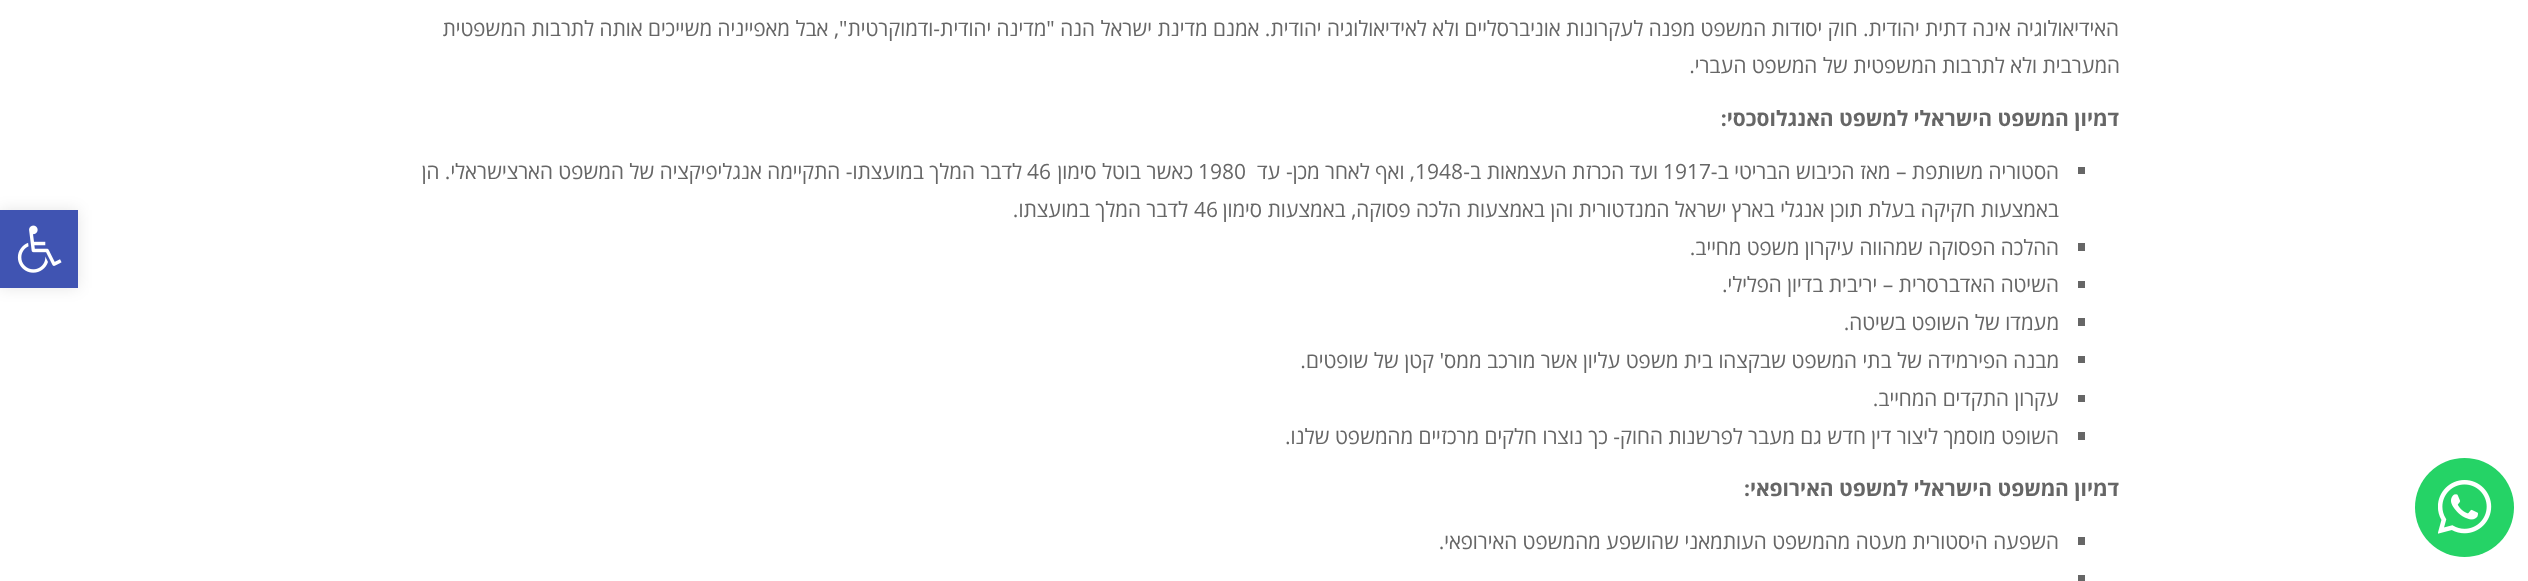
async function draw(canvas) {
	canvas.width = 2528;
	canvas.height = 581;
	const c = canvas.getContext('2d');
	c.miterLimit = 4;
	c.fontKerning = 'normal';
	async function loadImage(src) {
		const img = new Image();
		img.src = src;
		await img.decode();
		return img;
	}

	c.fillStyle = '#fff';
	c.fillRect(0, 0, 2528, 581);
	c.direction = 'rtl';
	c.font = '21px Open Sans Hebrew';
	c.fillStyle = '#666';
	c.fillText('האידיאולוגיה אינה דתית יהודית. חוק יסודות המשפט מפנה לעקרונות אוניברסליים ולא לאידיאולוגיה יהודית. אמנם מדינת ישראל הנה "מדינה יהודית-ודמוקרטית", אבל מאפייניה משייכים אותה לתרבות המשפטית', 2119, 36);
	c.fillText('המערבית ולא לתרבות המשפטית של המשפט העברי.', 2120, 73);
	c.font = 'bold 21px Open Sans Hebrew';
	c.fillText('דמיון המשפט הישראלי למשפט האנגלוסכסי:', 2119, 126);
	c.fillRect(2078, 167, 7, 7);
	c.font = '21px Open Sans Hebrew';
	c.fillText('הסטוריה משותפת – מאז הכיבוש הבריטי ב-', 2059, 179);
	c.direction = 'ltr';
	c.fillText('1917', 1663, 179);
	c.direction = 'rtl';
	c.fillText('ועד הכרזת העצמאות ב-', 1658, 179);
	c.direction = 'ltr';
	c.fillText('1948', 1415, 179);
	c.direction = 'rtl';
	c.fillText(', ואף לאחר מכן- עד', 1415, 179);
	c.direction = 'ltr';
	c.fillText('1980', 1198, 179);
	c.direction = 'rtl';
	c.fillText('כאשר בוטל סימון', 1193, 179);
	c.direction = 'ltr';
	c.fillText('46', 1027, 179);
	c.direction = 'rtl';
	c.fillText('לדבר המלך במועצתו- התקיימה אנגליפיקציה של המשפט הארצישראלי. הן', 1022, 179);
	c.fillText('באמצעות חקיקה בעלת תוכן אנגלי בארץ ישראל המנדטורית והן באמצעות הלכה פסוקה, באמצעות סימון', 2059, 217);
	c.direction = 'ltr';
	c.fillText('46', 1194, 217);
	c.direction = 'rtl';
	c.fillText('לדבר המלך במועצתו.', 1188, 217);
	c.fillRect(2078, 243, 7, 8);
	c.fillText('ההלכה הפסוקה שמהווה עיקרון משפט מחייב.', 2059, 255);
	c.fillRect(2078, 281, 7, 7);
	c.fillText('השיטה האדברסרית – יריבית בדיון הפלילי.', 2059, 292);
	c.fillRect(2078, 318, 7, 8);
	c.fillText('מעמדו של השופט בשיטה.', 2059, 330);
	c.fillRect(2078, 356, 7, 7);
	c.fillText('מבנה הפירמידה של בתי המשפט שבקצהו בית משפט עליון אשר מורכב ממס\' קטן של שופטים.', 2059, 368);
	c.fillRect(2078, 395, 7, 7);
	c.fillText('עקרון התקדים המחייב.', 2059, 406);
	c.fillRect(2078, 432, 7, 8);
	c.fillText('השופט מוסמך ליצור דין חדש גם מעבר לפרשנות החוק- כך נוצרו חלקים מרכזיים מהמשפט שלנו.', 2059, 444);
	c.font = 'bold 21px Open Sans Hebrew';
	c.fillText('דמיון המשפט הישראלי למשפט האירופאי:', 2119, 496);
	c.fillRect(2078, 537, 7, 8);
	c.font = '21px Open Sans Hebrew';
	c.fillText('השפעה היסטורית מעטה מהמשפט העותמאני שהושפע מהמשפט האירופאי.', 2059, 549);
	c.fillRect(2078, 575, 7, 6);
	c.fillStyle = '#0000001a';
	c.filter = 'blur(7.5px)';
	c.beginPath();
	c.rect(0, 210, 78, 78);
	c.fill();
	c.filter = 'none';
	c.fillStyle = '#4054b2';
	c.fillRect(0, 210, 78, 78);
	c.drawImage(await loadImage('img1.png'), 17, 225, 45, 48);
	c.fillStyle = '#25d366';
	c.beginPath();
	c.arc(2464.5, 507.5, 49.5, 0, 2 * Math.PI);
	c.fill();
	c.drawImage(await loadImage('img2.png'), 2438, 480, 54, 54);
}

draw(document.querySelector('canvas'));
